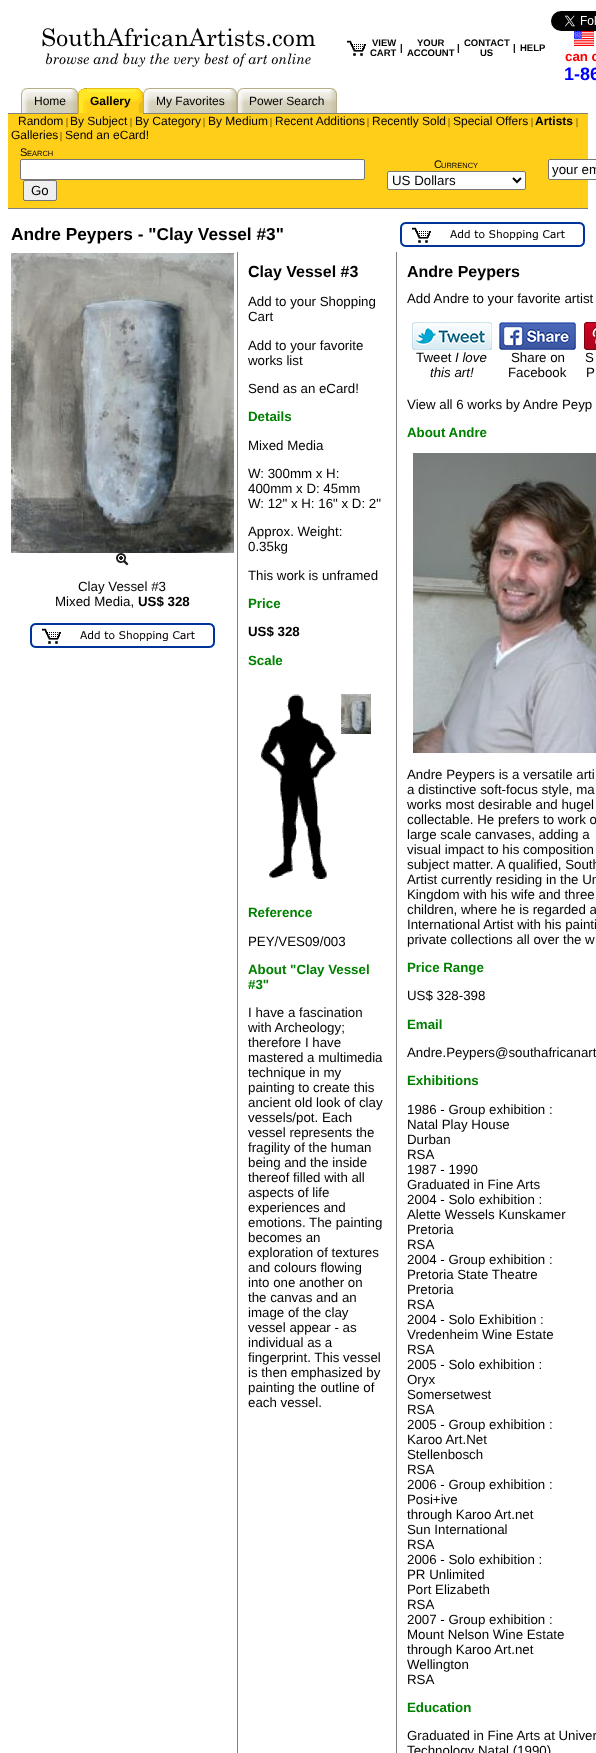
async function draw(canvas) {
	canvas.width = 596;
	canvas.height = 1753;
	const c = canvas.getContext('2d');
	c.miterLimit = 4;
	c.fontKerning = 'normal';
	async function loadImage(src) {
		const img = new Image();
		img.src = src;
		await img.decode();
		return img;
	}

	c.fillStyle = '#fff';
	c.fillRect(0, 0, 596, 1753);
	c.drawImage(await loadImage('img1.png'), 42, 28, 274, 39);
	c.drawImage(await loadImage('img2.png'), 347, 40, 19, 16);
	c.font = 'bold 9.5px Liberation Sans';
	c.fillStyle = '#000';
	for (const [text, x, y] of [
		['VIEW', 372, 46],
		['CART', 370, 56],
		['|', 400, 51],
		['YOUR', 417, 46],
		['ACCOUNT', 407, 56],
		['|', 457, 51],
		['CONTACT', 464, 46],
		['US', 480, 56],
		['|', 513, 51],
		['HELP', 520, 51],
	]) {
		c.fillText(text, x, y);
	}
	c.drawImage(await loadImage('img3.png'), 551, 11, 45, 20);
	c.drawImage(await loadImage('img4.png'), 574, 31, 20, 15);
	c.font = 'bold 13.3px Liberation Sans';
	c.fillStyle = '#f00';
	c.fillText('can c', 565, 61);
	c.font = 'bold 18px Liberation Sans';
	c.fillStyle = '#00f';
	c.fillText('1-86', 564, 80);
	c.drawImage(await loadImage('img5.png'), 21, 88, 9, 25);
	c.drawImage(await loadImage('img6.png'), 69, 88, 9, 25);
	c.fillStyle = '#ffce19';
	c.fillRect(78, 113, 65, 1);
	c.drawImage(await loadImage('img7.png'), 78, 88, 9, 25);
	c.drawImage(await loadImage('img8.png'), 134, 88, 9, 25);
	c.fillStyle = '#808080';
	c.fillRect(143, 113, 445, 1);
	c.drawImage(await loadImage('img5.png'), 143, 88, 9, 25);
	c.drawImage(await loadImage('img9.png'), 30, 88, 39, 25);
	c.font = '12px Liberation Sans';
	c.fillStyle = '#000';
	c.fillText('Home', 34, 105);
	c.drawImage(await loadImage('img10.png'), 87, 88, 47, 25);
	c.font = 'bold 12px Liberation Sans';
	c.fillText('Gallery', 90, 105);
	c.drawImage(await loadImage('img11.png'), 152, 88, 76, 25);
	c.font = '12px Liberation Sans';
	c.fillText('My Favorites', 156, 105);
	c.drawImage(await loadImage('img6.png'), 228, 88, 9, 25);
	c.drawImage(await loadImage('img5.png'), 237, 88, 9, 25);
	c.drawImage(await loadImage('img12.png'), 246, 88, 82, 25);
	c.fillText('Power Search', 249, 105);
	c.drawImage(await loadImage('img6.png'), 328, 88, 9, 25);
	c.fillStyle = '#808080';
	c.fillRect(8, 113, 70, 1);
	c.fillStyle = '#ffce19';
	c.fillRect(8, 114, 580, 94);
	c.fillStyle = '#000';
	c.fillText('Random', 18, 125);
	c.font = '10px Liberation Serif';
	c.fillText('|', 66, 125);
	c.font = '12px Liberation Sans';
	c.fillText('By Subject', 70, 125);
	c.font = '10px Liberation Serif';
	c.fillText('|', 130, 125);
	c.font = '12px Liberation Sans';
	c.fillText('By Category', 135, 125);
	c.font = '10px Liberation Serif';
	c.fillText('|', 203, 125);
	c.font = '12px Liberation Sans';
	c.fillText('By Medium', 208, 125);
	c.font = '10px Liberation Serif';
	c.fillText('|', 270, 125);
	c.font = '12px Liberation Sans';
	c.fillText('Recent Additions', 275, 125);
	c.font = '10px Liberation Serif';
	c.fillText('|', 367, 125);
	c.font = '12px Liberation Sans';
	c.fillText('Recently Sold', 372, 125);
	c.font = '10px Liberation Serif';
	c.fillText('|', 448, 125);
	c.font = '12px Liberation Sans';
	c.fillText('Special Offers', 453, 125);
	c.font = '10px Liberation Serif';
	c.fillText('|', 531, 125);
	c.font = 'bold 12px Liberation Sans';
	c.fillText('Artists', 535, 125);
	c.font = '10px Liberation Serif';
	c.fillText('|', 576, 125);
	c.font = '12px Liberation Sans';
	c.fillText('Galleries', 11, 139);
	c.font = '10px Liberation Serif';
	c.fillText('|', 60, 139);
	c.font = '12px Liberation Sans';
	c.fillText('Send an eCard!', 65, 139);
	c.fillStyle = '#808080';
	c.fillRect(8, 208, 580, 1);
	c.font = '11px Liberation Sans';
	c.fillStyle = '#000';
	c.fillText('S', 20, 156);
	c.font = '7.5px Liberation Sans';
	c.fillText('EARCH', 27, 156);
	c.fillStyle = '#fff';
	c.beginPath();
	c.roundRect(20.5, 159.5, 344, 20, 1.5);
	c.fill();
	c.strokeStyle = '#767676';
	c.stroke();
	c.fillStyle = '#efefef';
	c.beginPath();
	c.roundRect(23.5, 180.5, 33, 20, 1.5);
	c.fill();
	c.stroke();
	c.font = '13.3px Liberation Sans';
	c.fillStyle = '#000';
	c.fillText('Go', 31, 195);
	c.font = '11px Liberation Sans';
	c.fillText('C', 434, 168);
	c.font = '7.5px Liberation Sans';
	c.fillText('URRENCY', 441, 168);
	c.fillStyle = '#fff';
	c.beginPath();
	c.roundRect(387.5, 171.5, 138, 18, 1.5);
	c.fill();
	c.stroke();
	c.beginPath();
	c.moveTo(513, 178);
	c.lineTo(517, 182);
	c.lineTo(521, 178);
	c.strokeStyle = '#000';
	c.lineWidth = 2;
	c.stroke();
	c.font = '13.3px Liberation Sans';
	c.fillStyle = '#000';
	c.fillText('US Dollars', 392, 185);
	c.fillStyle = '#fff';
	c.beginPath();
	c.roundRect(548.5, 159.5, 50, 20, 1.5);
	c.fill();
	c.strokeStyle = '#767676';
	c.lineWidth = 1;
	c.stroke();
	c.fillStyle = '#000';
	c.fillText('your em', 552, 174);
	c.font = 'bold 17.3px Liberation Sans';
	c.fillText('Andre Peypers - "Clay Vessel #3"', 11, 240);
	c.drawImage(await loadImage('img13.png'), 400, 222, 185, 25);
	c.drawImage(await loadImage('img14.png'), 11, 253, 223, 300);
	c.drawImage(await loadImage('img15.png'), 116, 553, 13, 13);
	c.font = '13.3px Liberation Sans';
	c.fillText('Clay Vessel #3', 78, 591);
	c.fillText('Mixed Media,', 55, 606);
	c.font = 'bold 13.3px Liberation Sans';
	c.fillText('US$ 328', 138, 606);
	c.drawImage(await loadImage('img13.png'), 30, 623, 185, 25);
	c.fillStyle = '#808080';
	c.fillRect(237, 252, 1, 1501);
	c.font = 'bold 16px Liberation Sans';
	c.fillStyle = '#000';
	c.fillText('Clay Vessel #3', 248, 277);
	c.font = '13.3px Liberation Sans';
	for (const [text, x, y] of [
		['Add to your Shopping', 248, 306],
		['Cart', 248, 321],
		['Add to your favorite', 248, 350],
		['works list', 248, 365],
		['Send as an eCard!', 248, 393],
	]) {
		c.fillText(text, x, y);
	}
	c.font = 'bold 13.3px Liberation Sans';
	c.fillStyle = '#008000';
	c.fillText('Details', 248, 421);
	c.font = '13.3px Liberation Sans';
	c.fillStyle = '#000';
	for (const [text, x, y] of [
		['Mixed Media', 248, 450],
		['W: 300mm x H:', 248, 478],
		['400mm x D: 45mm', 248, 493],
		['W: 12" x H: 16" x D: 2"', 248, 508],
		['Approx. Weight:', 248, 536],
		['0.35kg', 248, 551],
		['This work is unframed', 248, 580],
	]) {
		c.fillText(text, x, y);
	}
	c.font = 'bold 13.3px Liberation Sans';
	c.fillStyle = '#008000';
	c.fillText('Price', 248, 608);
	c.fillStyle = '#000';
	c.fillText('US$ 328', 248, 636);
	c.fillStyle = '#008000';
	c.fillText('Scale', 248, 665);
	c.drawImage(await loadImage('img16.png'), 261, 694, 76, 185);
	c.drawImage(await loadImage('img17.png'), 341, 694, 30, 40);
	c.fillText('Reference', 248, 917);
	c.font = '13.3px Liberation Sans';
	c.fillStyle = '#000';
	c.fillText('PEY/VES09/003', 248, 946);
	c.font = 'bold 13.3px Liberation Sans';
	c.fillStyle = '#008000';
	c.fillText('About "Clay Vessel', 248, 974);
	c.fillText('#3"', 248, 989);
	c.font = '13.3px Liberation Sans';
	c.fillStyle = '#000';
	for (const [text, x, y] of [
		['I have a fascination', 248, 1017],
		['with Archeology;', 248, 1032],
		['therefore I have', 248, 1047],
		['mastered a multimedia', 248, 1062],
		['technique in my', 248, 1077],
		['painting to create this', 248, 1092],
		['ancient old look of clay', 248, 1107],
		['vessels/pot. Each', 248, 1122],
		['vessel represents the', 248, 1137],
		['fragility of the human', 248, 1152],
		['being and the inside', 248, 1167],
		['thereof filled with all', 248, 1182],
		['aspects of life', 248, 1197],
		['experiences and', 248, 1212],
		['emotions. The painting', 248, 1227],
		['becomes an', 248, 1242],
		['exploration of textures', 248, 1257],
		['and colours flowing', 248, 1272],
		['into one another on', 248, 1287],
		['the canvas and an', 248, 1302],
		['image of the clay', 248, 1317],
		['vessel appear - as', 248, 1332],
		['individual as a', 248, 1347],
		['fingerprint. This vessel', 248, 1362],
		['is then emphasized by', 248, 1377],
		['painting the outline of', 248, 1392],
		['each vessel.', 248, 1407],
	]) {
		c.fillText(text, x, y);
	}
	c.fillStyle = '#808080';
	c.fillRect(396, 252, 1, 1501);
	c.font = 'bold 16px Liberation Sans';
	c.fillStyle = '#000';
	c.fillText('Andre Peypers', 407, 277);
	c.font = '13.3px Liberation Sans';
	c.fillText('Add Andre to your favorite artist', 407, 303);
	c.drawImage(await loadImage('img18.png'), 412, 322, 80, 28);
	c.fillText('Tweet', 416, 362);
	c.font = 'italic 13.3px Liberation Sans';
	c.fillText('I love', 455, 362);
	c.fillText('this art!', 430, 377);
	c.drawImage(await loadImage('img19.png'), 499, 322, 77, 28);
	c.font = '13.3px Liberation Sans';
	c.fillText('Share on', 511, 362);
	c.fillText('Facebook', 508, 377);
	c.drawImage(await loadImage('img20.png'), 584, 322, 12, 28);
	for (const [text, x, y] of [
		['S', 585, 362],
		['P', 586, 377],
		['View all 6 works by Andre Peyp', 407, 409],
	]) {
		c.fillText(text, x, y);
	}
	c.font = 'bold 13.3px Liberation Sans';
	c.fillStyle = '#008000';
	c.fillText('About Andre', 407, 437);
	c.drawImage(await loadImage('img21.png'), 413, 453, 183, 300);
	c.font = '13.3px Liberation Sans';
	c.fillStyle = '#000';
	for (const [text, x, y] of [
		['Andre Peypers is a versatile arti', 407, 779],
		['a distinctive soft-focus style, ma', 407, 794],
		['works most desirable and hugel', 407, 809],
		['collectable. He prefers to work o', 407, 824],
		['large scale canvases, adding a', 407, 839],
		['visual impact to his composition', 407, 854],
		['subject matter. A qualified, South', 407, 869],
		['Artist currently residing in the Un', 407, 884],
		['Kingdom with his wife and three', 407, 899],
		['children, where he is regarded a', 407, 914],
		['International Artist with his painti', 407, 929],
		['private collections all over the w', 407, 944],
	]) {
		c.fillText(text, x, y);
	}
	c.font = 'bold 13.3px Liberation Sans';
	c.fillStyle = '#008000';
	c.fillText('Price Range', 407, 972);
	c.font = '13.3px Liberation Sans';
	c.fillStyle = '#000';
	c.fillText('US$ 328-398', 407, 1000);
	c.font = 'bold 13.3px Liberation Sans';
	c.fillStyle = '#008000';
	c.fillText('Email', 407, 1029);
	c.font = '13.3px Liberation Sans';
	c.fillStyle = '#000';
	c.fillText('Andre.Peypers@southafricanart', 407, 1057);
	c.font = 'bold 13.3px Liberation Sans';
	c.fillStyle = '#008000';
	c.fillText('Exhibitions', 407, 1085);
	c.font = '13.3px Liberation Sans';
	c.fillStyle = '#000';
	for (const [text, x, y] of [
		['1986 - Group exhibition :', 407, 1114],
		['Natal Play House', 407, 1129],
		['Durban', 407, 1144],
		['RSA', 407, 1159],
		['1987 - 1990', 407, 1174],
		['Graduated in Fine Arts', 407, 1189],
		['2004 - Solo exhibition :', 407, 1204],
		['Alette Wessels Kunskamer', 407, 1219],
		['Pretoria', 407, 1234],
		['RSA', 407, 1249],
		['2004 - Group exhibition :', 407, 1264],
		['Pretoria State Theatre', 407, 1279],
		['Pretoria', 407, 1294],
		['RSA', 407, 1309],
		['2004 - Solo Exhibition :', 407, 1324],
		['Vredenheim Wine Estate', 407, 1339],
		['RSA', 407, 1354],
		['2005 - Solo exhibition :', 407, 1369],
		['Oryx', 407, 1384],
		['Somersetwest', 407, 1399],
		['RSA', 407, 1414],
		['2005 - Group exhibition :', 407, 1429],
		['Karoo Art.Net', 407, 1444],
		['Stellenbosch', 407, 1459],
		['RSA', 407, 1474],
		['2006 - Group exhibition :', 407, 1489],
		['Posi+ive', 407, 1504],
		['through Karoo Art.net', 407, 1519],
		['Sun International', 407, 1534],
		['RSA', 407, 1549],
		['2006 - Solo exhibition :', 407, 1564],
		['PR Unlimited', 407, 1579],
		['Port Elizabeth', 407, 1594],
		['RSA', 407, 1609],
		['2007 - Group exhibition :', 407, 1624],
		['Mount Nelson Wine Estate', 407, 1639],
		['through Karoo Art.net', 407, 1654],
		['Wellington', 407, 1669],
		['RSA', 407, 1684],
	]) {
		c.fillText(text, x, y);
	}
	c.font = 'bold 13.3px Liberation Sans';
	c.fillStyle = '#008000';
	c.fillText('Education', 407, 1712);
	c.font = '13.3px Liberation Sans';
	c.fillStyle = '#000';
	c.fillText('Graduated in Fine Arts at Univer', 407, 1740);
	c.fillText('Technology Natal (1990)', 407, 1755);
}

draw(document.querySelector('canvas'));
